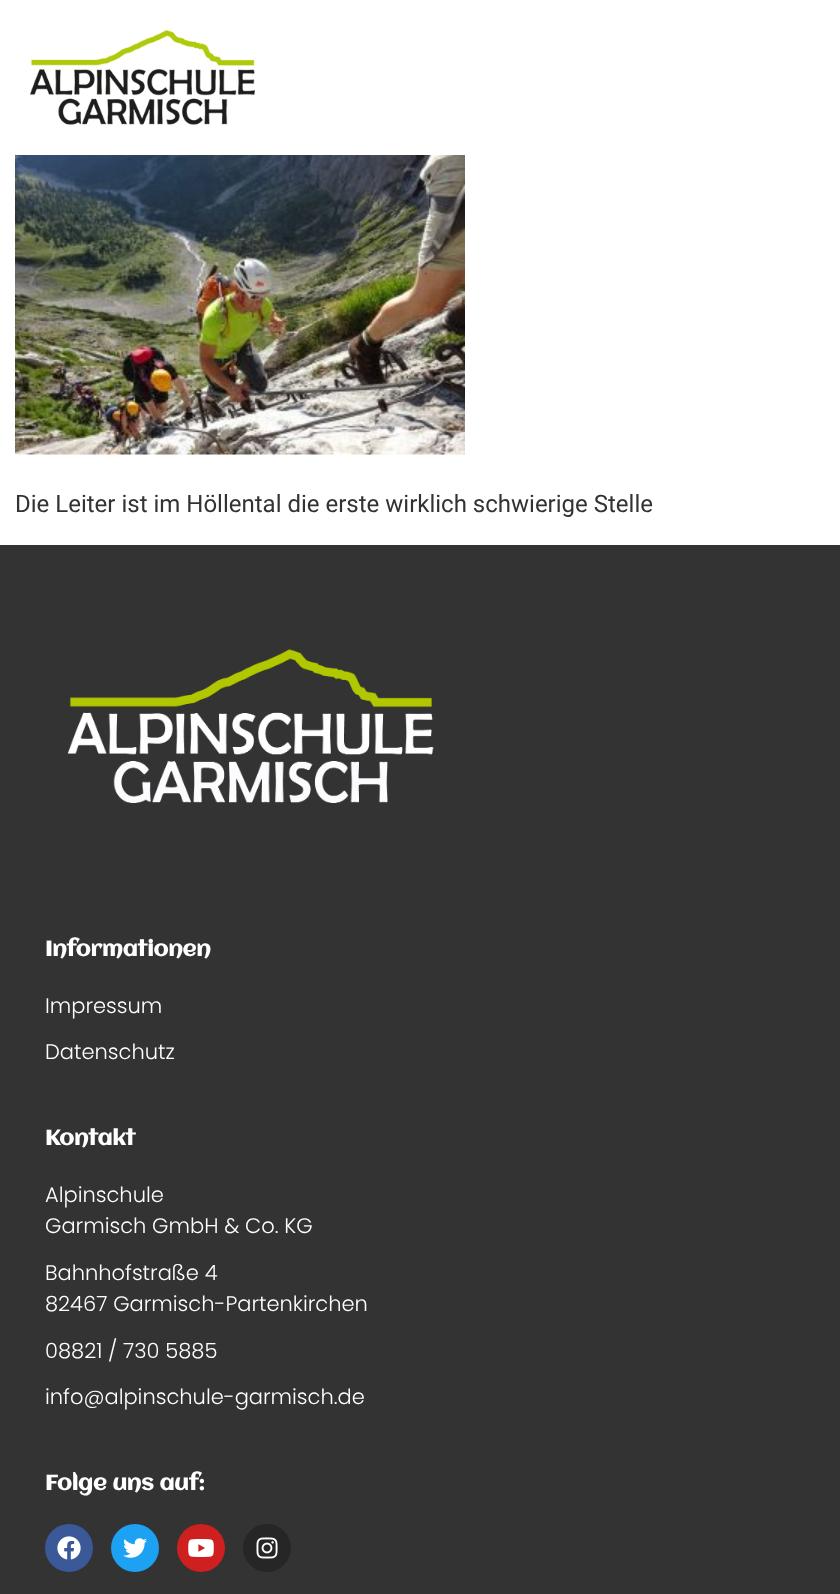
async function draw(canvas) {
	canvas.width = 840;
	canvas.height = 1594;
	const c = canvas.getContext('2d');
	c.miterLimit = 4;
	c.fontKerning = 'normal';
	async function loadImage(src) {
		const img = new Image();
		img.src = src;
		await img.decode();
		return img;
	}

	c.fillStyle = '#fff';
	c.fillRect(0, 0, 840, 1594);
	c.drawImage(await loadImage('img1.png'), 30, 30, 225, 95);
	c.drawImage(await loadImage('img2.png'), 15, 155, 450, 300);
	c.font = '24px Roboto';
	c.fillStyle = '#333';
	c.fillText('Die Leiter ist im Höllental die erste wirklich schwierige Stelle', 15, 512);
	c.fillRect(0, 545, 840, 1049);
	c.drawImage(await loadImage('img3.png'), 67, 649, 367, 154);
	c.font = 'bold 21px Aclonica';
	c.fillStyle = '#fff';
	c.fillText('Informationen', 45, 956);
	c.font = '300 21px Poppins';
	c.fillText('Impressum', 45, 1013);
	c.fillText('Datenschutz', 45, 1059);
	c.font = 'bold 21px Aclonica';
	c.fillText('Kontakt', 45, 1145);
	c.font = '300 21px Poppins';
	for (const [text, x, y] of [
		['Alpinschule', 45, 1202],
		['Garmisch GmbH & Co. KG', 45, 1233],
		['Bahnhofstraße 4', 45, 1280],
		['82467 Garmisch-Partenkirchen', 45, 1311],
		['08821 / 730 5885', 45, 1358],
		['info@alpinschule-garmisch.de', 45, 1404],
	]) {
		c.fillText(text, x, y);
	}
	c.font = 'bold 21px Aclonica';
	c.fillText('Folge uns auf:', 45, 1490);
	c.fillStyle = '#3b5998';
	c.beginPath();
	c.arc(69, 1548, 24, 0, 2 * Math.PI);
	c.fill();
	c.drawImage(await loadImage('img4.png'), 57, 1536, 24, 24);
	c.fillStyle = '#1da1f2';
	c.beginPath();
	c.arc(135, 1548, 24, 0, 2 * Math.PI);
	c.fill();
	c.drawImage(await loadImage('img5.png'), 123, 1538, 24, 20);
	c.fillStyle = '#cd201f';
	c.beginPath();
	c.arc(201, 1548, 24, 0, 2 * Math.PI);
	c.fill();
	c.drawImage(await loadImage('img6.png'), 188, 1539, 26, 18);
	c.fillStyle = '#262626';
	c.beginPath();
	c.arc(267, 1548, 24, 0, 2 * Math.PI);
	c.fill();
	c.drawImage(await loadImage('img7.png'), 256, 1537, 22, 22);
}

draw(document.querySelector('canvas'));
